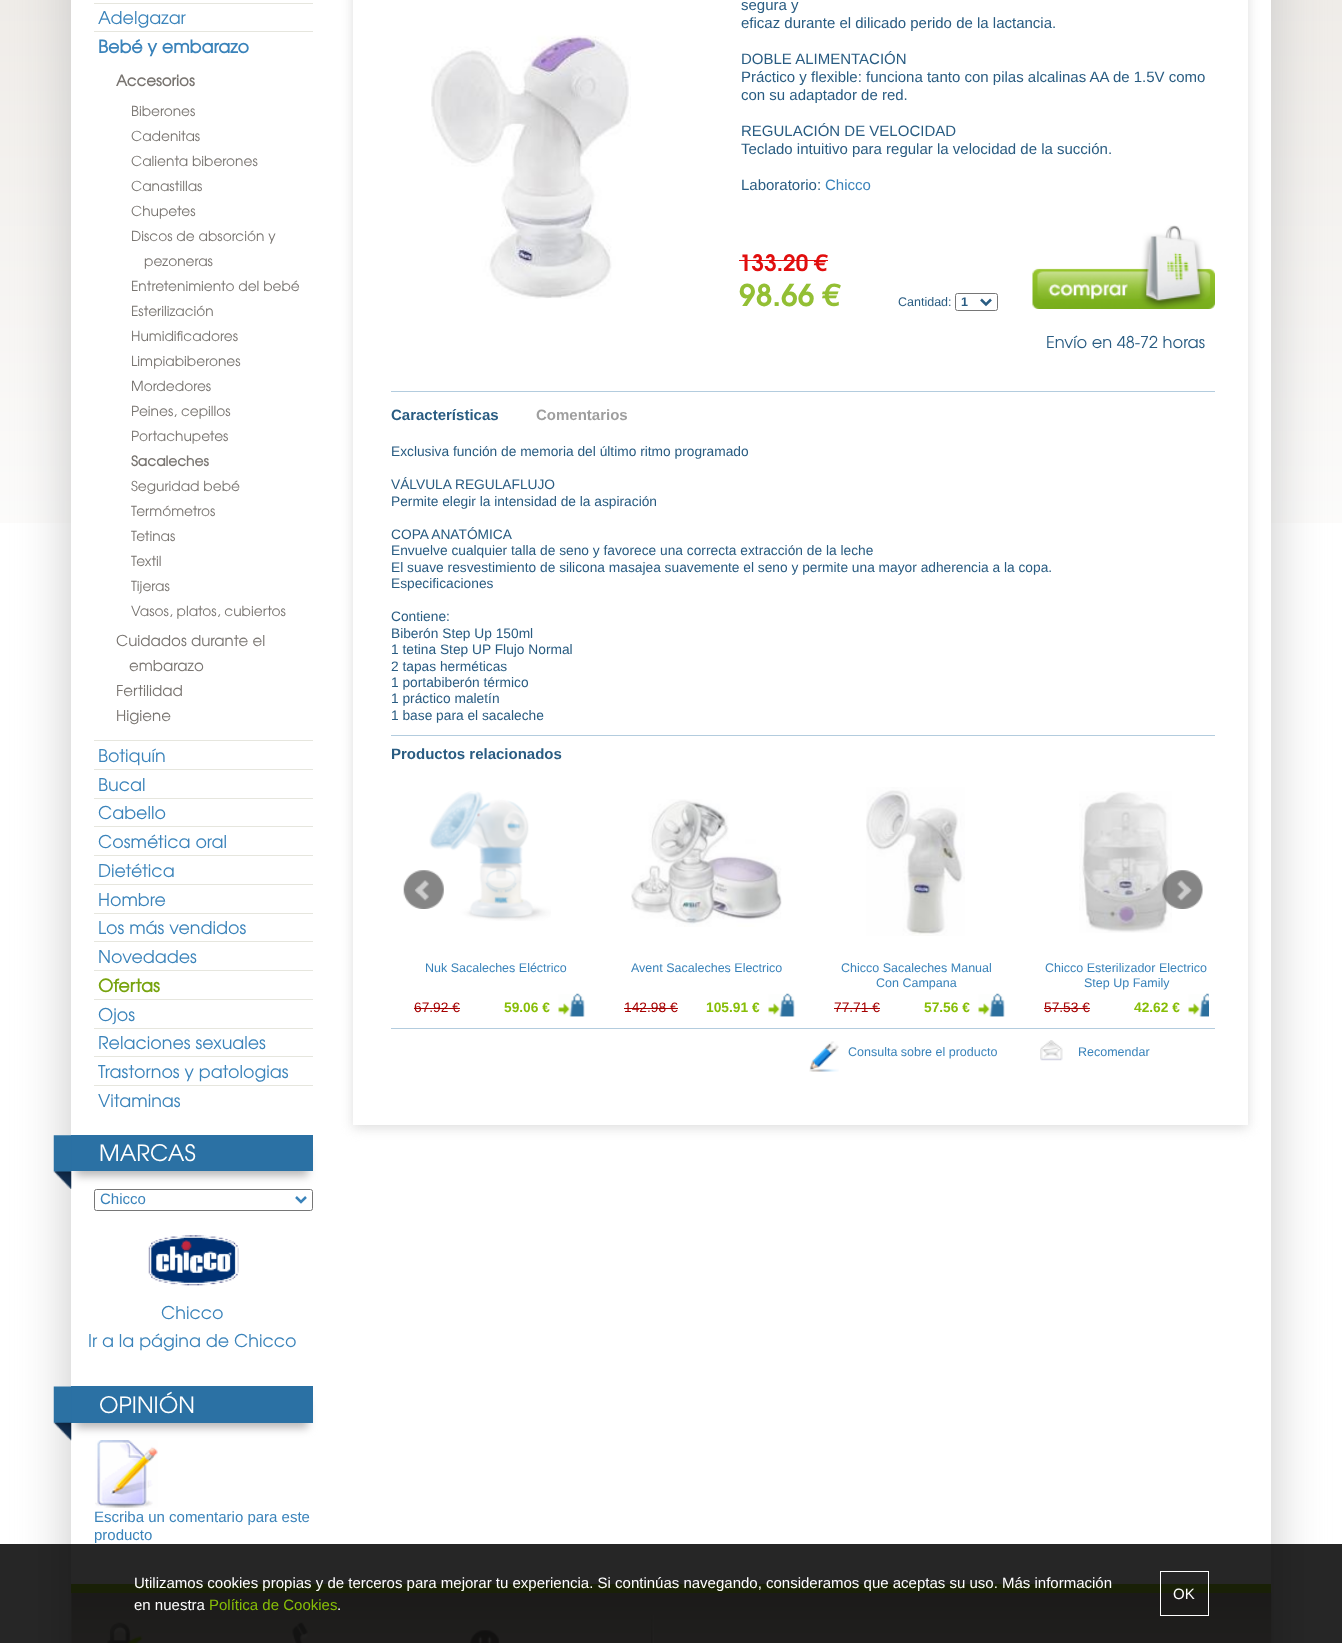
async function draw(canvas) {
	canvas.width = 1342;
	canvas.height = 1643;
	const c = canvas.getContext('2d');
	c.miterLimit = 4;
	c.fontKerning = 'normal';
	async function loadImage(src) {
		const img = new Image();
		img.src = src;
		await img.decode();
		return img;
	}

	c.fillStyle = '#fff';
	c.fillRect(0, 0, 1342, 1643);
	c.drawImage(await loadImage('img1.png'), 0, 0, 1342, 523);
	c.fillStyle = '#c7c7c7';
	c.filter = 'blur(26px)';
	c.beginPath();
	c.rect(71, -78, 1200, 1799);
	c.fill();
	c.filter = 'none';
	c.fillStyle = '#fff';
	c.fillRect(71, 0, 1200, 1643);
	c.fillStyle = '#e6e6de';
	c.fillRect(94, 3, 219, 1);
	c.font = '17.5px TeX Gyre Adventor';
	c.fillStyle = '#3a83ba';
	c.fillText('Adelgazar', 98, 24);
	c.fillStyle = '#e6e6de';
	c.fillRect(94, 31, 219, 1);
	c.font = 'bold 17.5px TeX Gyre Adventor';
	c.fillStyle = '#3a83ba';
	c.fillText('Bebé y embarazo', 98, 53);
	c.font = 'bold 15px TeX Gyre Adventor';
	c.fillStyle = '#797571';
	c.fillText('Accesorios', 116, 86);
	c.font = '13.75px TeX Gyre Adventor';
	for (const [text, x, y] of [
		['Biberones', 131, 116],
		['Cadenitas', 131, 141],
		['Calienta biberones', 131, 166],
		['Canastillas', 131, 191],
		['Chupetes', 131, 216],
		['Discos de absorción y', 131, 241],
		['pezoneras', 144, 266],
		['Entretenimiento del bebé', 131, 291],
		['Esterilización', 131, 316],
		['Humidificadores', 131, 341],
		['Limpiabiberones', 131, 366],
		['Mordedores', 131, 391],
		['Peines, cepillos', 131, 416],
		['Portachupetes', 131, 441],
	]) {
		c.fillText(text, x, y);
	}
	c.font = 'bold 13.75px TeX Gyre Adventor';
	c.fillText('Sacaleches', 131, 466);
	c.font = '13.75px TeX Gyre Adventor';
	for (const [text, x, y] of [
		['Seguridad bebé', 131, 491],
		['Termómetros', 131, 516],
		['Tetinas', 131, 541],
		['Textil', 131, 566],
		['Tijeras', 131, 591],
		['Vasos, platos, cubiertos', 131, 616],
	]) {
		c.fillText(text, x, y);
	}
	c.font = '15px TeX Gyre Adventor';
	for (const [text, x, y] of [
		['Cuidados durante el', 116, 646],
		['embarazo', 129, 671],
		['Fertilidad', 116, 696],
		['Higiene', 116, 721],
	]) {
		c.fillText(text, x, y);
	}
	c.fillStyle = '#e6e6de';
	c.fillRect(94, 740, 219, 1);
	c.font = '17.5px TeX Gyre Adventor';
	c.fillStyle = '#3a83ba';
	c.fillText('Botiquín', 98, 762);
	c.fillStyle = '#e6e6de';
	c.fillRect(94, 769, 219, 1);
	c.fillStyle = '#3a83ba';
	c.fillText('Bucal', 98, 791);
	c.fillStyle = '#e6e6de';
	c.fillRect(94, 798, 219, 1);
	c.fillStyle = '#3a83ba';
	c.fillText('Cabello', 98, 819);
	c.fillStyle = '#e6e6de';
	c.fillRect(94, 826, 219, 1);
	c.fillStyle = '#3a83ba';
	c.fillText('Cosmética oral', 98, 848);
	c.fillStyle = '#e6e6de';
	c.fillRect(94, 855, 219, 1);
	c.fillStyle = '#3a83ba';
	c.fillText('Dietética', 98, 877);
	c.fillStyle = '#e6e6de';
	c.fillRect(94, 884, 219, 1);
	c.fillStyle = '#3a83ba';
	c.fillText('Hombre', 98, 906);
	c.fillStyle = '#e6e6de';
	c.fillRect(94, 913, 219, 1);
	c.fillStyle = '#3a83ba';
	c.fillText('Los más vendidos', 98, 934);
	c.fillStyle = '#e6e6de';
	c.fillRect(94, 941, 219, 1);
	c.fillStyle = '#3a83ba';
	c.fillText('Novedades', 98, 963);
	c.fillStyle = '#e6e6de';
	c.fillRect(94, 970, 219, 1);
	c.font = 'bold 17.5px TeX Gyre Adventor';
	c.fillStyle = '#77a30e';
	c.fillText('Ofertas', 98, 992);
	c.fillStyle = '#e6e6de';
	c.fillRect(94, 999, 219, 1);
	c.font = '17.5px TeX Gyre Adventor';
	c.fillStyle = '#3a83ba';
	c.fillText('Ojos', 98, 1021);
	c.fillStyle = '#e6e6de';
	c.fillRect(94, 1028, 219, 1);
	c.fillStyle = '#3a83ba';
	c.fillText('Relaciones sexuales', 98, 1049);
	c.fillStyle = '#e6e6de';
	c.fillRect(94, 1056, 219, 1);
	c.fillStyle = '#3a83ba';
	c.fillText('Trastornos y patologias', 98, 1078);
	c.fillStyle = '#e6e6de';
	c.fillRect(94, 1085, 219, 1);
	c.fillStyle = '#3a83ba';
	c.fillText('Vitaminas', 98, 1107);
	c.fillStyle = '#bab8b9';
	c.filter = 'blur(4px)';
	c.beginPath();
	c.rect(76, 1150, 232, 26);
	c.fill();
	c.filter = 'none';
	c.fillStyle = '#2b71a4';
	c.fillRect(71, 1135, 242, 36);
	c.drawImage(await loadImage('img2.png'), 53, 1135, 19, 54);
	c.font = '22.5px TeX Gyre Adventor';
	c.fillStyle = '#fff';
	c.fillText('MARCAS', 99, 1161);
	c.beginPath();
	c.roundRect(94.5, 1189.5, 218, 21, 2);
	c.strokeStyle = '#767676';
	c.stroke();
	c.beginPath();
	c.moveTo(296, 1197);
	c.lineTo(301, 1202);
	c.lineTo(306, 1197);
	c.strokeStyle = '#3a83ba';
	c.lineWidth = 2.5;
	c.stroke();
	c.font = '15px Liberation Sans';
	c.fillStyle = '#3a83ba';
	c.fillText('Chicco', 100, 1204);
	c.drawImage(await loadImage('img3.png'), 148, 1235, 91, 51);
	c.font = '17.5px TeX Gyre Adventor';
	c.fillText('Chicco', 161, 1319);
	c.fillText('Ir a la página de Chicco', 88, 1347);
	c.drawImage(await loadImage('img5.png'), 95, 1440, 63, 68);
	c.fillStyle = '#bab8b9';
	c.filter = 'blur(4px)';
	c.beginPath();
	c.rect(76, 1401, 232, 27);
	c.fill();
	c.filter = 'none';
	c.fillStyle = '#2b71a4';
	c.fillRect(71, 1386, 242, 37);
	c.drawImage(await loadImage('img4.png'), 53, 1386, 19, 55);
	c.font = '22.5px TeX Gyre Adventor';
	c.fillStyle = '#fff';
	c.fillText('OPINIÓN', 99, 1413);
	c.font = '15px Liberation Sans';
	c.fillStyle = '#3a83ba';
	c.fillText('Escriba un comentario para este', 94, 1522);
	c.fillText('producto', 94, 1540);
	c.save();
	c.beginPath();
	c.moveTo(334, 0);
	c.lineTo(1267, 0);
	c.lineTo(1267, 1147);
	c.lineTo(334, 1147);
	c.closePath();
	c.moveTo(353, -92);
	c.lineTo(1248, -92);
	c.lineTo(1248, 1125);
	c.lineTo(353, 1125);
	c.closePath();
	c.clip('evenodd');
	c.fillStyle = '#ddd';
	c.filter = 'blur(6px)';
	c.beginPath();
	c.rect(353, -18, 895, 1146);
	c.fill();
	c.filter = 'none';
	c.restore();
	c.fillStyle = '#b3ccde';
	c.fillRect(391, 391, 824, 1);
	c.fillStyle = '#295c82';
	c.fillText('segura y', 741, 10);
	c.fillText('eficaz durante el dilicado perido de la lactancia.', 741, 28);
	c.drawImage(await loadImage('img6.png'), 431, 35, 200, 264);
	for (const [text, x, y] of [
		['DOBLE ALIMENTACIÓN', 741, 64],
		['Práctico y flexible: funciona tanto con pilas alcalinas AA de 1.5V como', 741, 82],
		['con su adaptador de red.', 741, 100],
		['REGULACIÓN DE VELOCIDAD', 741, 136],
		['Teclado intuitivo para regular la velocidad de la succión.', 741, 154],
		['Laboratorio:', 741, 190],
	]) {
		c.fillText(text, x, y);
	}
	c.fillStyle = '#3a83ba';
	c.fillText('Chicco', 825, 190);
	c.font = 'bold 22.5px "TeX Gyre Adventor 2"';
	c.fillStyle = '#e10e0e';
	c.fillText('133.20 €', 739, 271);
	c.fillRect(739, 260, 89, 1);
	c.font = 'bold 30px "TeX Gyre Adventor 2"';
	c.fillStyle = '#93bf34';
	c.fillText('98.66 €', 739, 306);
	c.font = '12.5px Liberation Sans';
	c.fillStyle = '#295c82';
	c.fillText('Cantidad:', 898, 306);
	c.beginPath();
	c.roundRect(955.5, 293.5, 42, 17, 2);
	c.strokeStyle = '#767676';
	c.lineWidth = 1;
	c.stroke();
	c.beginPath();
	c.moveTo(981, 299.5);
	c.lineTo(986, 304.5);
	c.lineTo(991, 299.5);
	c.strokeStyle = '#295c82';
	c.lineWidth = 2.5;
	c.stroke();
	c.font = 'bold 12.5px Liberation Sans';
	c.fillText('1', 961, 306);
	c.drawImage(await loadImage('img7.png'), 1032, 225, 183, 84);
	c.font = '16.25px TeX Gyre Adventor';
	c.fillText('Envío en 48-72 horas', 1046, 348);
	c.fillStyle = '#b3ccde';
	c.fillRect(391, 735, 824, 1);
	c.font = 'bold 15px Liberation Sans';
	c.fillStyle = '#295c82';
	c.fillText('Características', 391, 420);
	c.fillStyle = '#9f9f9f';
	c.fillText('Comentarios', 536, 420);
	c.font = '13.75px Liberation Sans';
	c.fillStyle = '#295c82';
	for (const [text, x, y] of [
		['Exclusiva función de memoria del último ritmo programado', 391, 456],
		['VÁLVULA REGULAFLUJO', 391, 489],
		['Permite elegir la intensidad de la aspiración', 391, 506],
		['COPA ANATÓMICA', 391, 539],
		['Envuelve cualquier talla de seno y favorece una correcta extracción de la leche', 391, 555],
		['El suave resvestimiento de silicona masajea suavemente el seno y permite una mayor adherencia a la copa.', 391, 572],
		['Especificaciones', 391, 588],
		['Contiene:', 391, 621],
		['Biberón Step Up 150ml', 391, 638],
		['1 tetina Step UP Flujo Normal', 391, 654],
		['2 tapas herméticas', 391, 671],
		['1 portabiberón térmico', 391, 687],
		['1 práctico maletín', 391, 703],
		['1 base para el sacaleche', 391, 720],
	]) {
		c.fillText(text, x, y);
	}
	c.fillStyle = '#b3ccde';
	c.fillRect(391, 1028, 824, 1);
	c.font = 'bold 15px Liberation Sans';
	c.fillStyle = '#295c82';
	c.fillText('Productos relacionados', 391, 759);
	c.drawImage(await loadImage('img10.png'), 429, 791, 122, 130);
	c.drawImage(await loadImage('img8.png'), 403, 870, 41, 39);
	c.drawImage(await loadImage('img14.png'), 1079, 791, 93, 142);
	c.drawImage(await loadImage('img9.png'), 1162, 870, 41, 39);
	c.font = '12.5px Liberation Sans';
	c.fillStyle = '#3a83ba';
	c.fillText('Nuk Sacaleches Eléctrico', 425, 972);
	c.font = '13.75px Liberation Sans';
	c.fillStyle = '#a50000';
	c.fillText('67.92 €', 414, 1012);
	c.fillRect(414, 1008, 46, 1);
	c.font = 'bold 13.75px Liberation Sans';
	c.fillStyle = '#87bd07';
	c.fillText('59.06 €', 504, 1012);
	c.drawImage(await loadImage('img11.png'), 558, 993, 27, 24);
	c.drawImage(await loadImage('img12.png'), 631, 799, 151, 128);
	c.font = '12.5px Liberation Sans';
	c.fillStyle = '#3a83ba';
	c.fillText('Avent Sacaleches Electrico', 631, 972);
	c.font = '13.75px Liberation Sans';
	c.fillStyle = '#a50000';
	c.fillText('142.98 €', 624, 1012);
	c.fillRect(624, 1008, 54, 1);
	c.font = 'bold 13.75px Liberation Sans';
	c.fillStyle = '#87bd07';
	c.fillText('105.91 €', 706, 1012);
	c.drawImage(await loadImage('img11.png'), 768, 993, 27, 24);
	c.drawImage(await loadImage('img13.png'), 866, 787, 99, 149);
	c.font = '12.5px Liberation Sans';
	c.fillStyle = '#3a83ba';
	c.fillText('Chicco Sacaleches Manual', 841, 972);
	c.fillText('Con Campana', 876, 987);
	c.font = '13.75px Liberation Sans';
	c.fillStyle = '#a50000';
	c.fillText('77.71 €', 834, 1012);
	c.fillRect(834, 1008, 46, 1);
	c.font = 'bold 13.75px Liberation Sans';
	c.fillStyle = '#87bd07';
	c.fillText('57.56 €', 924, 1012);
	c.drawImage(await loadImage('img11.png'), 978, 993, 27, 24);
	c.font = '12.5px Liberation Sans';
	c.fillStyle = '#3a83ba';
	c.fillText('Chicco Esterilizador Electrico', 1045, 972);
	c.fillText('Step Up Family', 1084, 987);
	c.font = '13.75px Liberation Sans';
	c.fillStyle = '#a50000';
	c.fillText('57.53 €', 1044, 1012);
	c.fillRect(1044, 1008, 46, 1);
	c.font = 'bold 13.75px Liberation Sans';
	c.fillStyle = '#87bd07';
	c.fillText('42.62 €', 1134, 1012);
	c.drawImage(await loadImage('img15.png'), 1188, 993, 21, 24);
	c.drawImage(await loadImage('img16.png'), 809, 1041, 30, 31);
	c.font = '12.5px Liberation Sans';
	c.fillStyle = '#3a83ba';
	c.fillText('Consulta sobre el producto', 848, 1056);
	c.drawImage(await loadImage('img17.png'), 1040, 1040, 23, 21);
	c.fillText('Recomendar', 1078, 1056);
	c.drawImage(await loadImage('img18.png'), 71, 1592, 1201, 51);
	c.fillStyle = '#a7d733';
	c.fillRect(71, 1584, 1200, 9);
	c.drawImage(await loadImage('img19.png'), 107, 1622, 36, 21);
	c.drawImage(await loadImage('img20.png'), 292, 1622, 16, 21);
	c.drawImage(await loadImage('img21.png'), 470, 1630, 29, 13);
	c.drawImage(await loadImage('img22.png'), 651, 1615, 3, 28);
	c.fillStyle = '#000000d9';
	c.fillRect(0, 1544, 1342, 99);
	c.font = '15px Liberation Sans';
	c.fillStyle = '#fff';
	c.fillText('Utilizamos cookies propias y de terceros para mejorar tu experiencia. Si continúas navegando, consideramos que aceptas su uso. Más información', 134, 1588);
	c.fillText('en nuestra', 134, 1610);
	c.fillStyle = '#87bd07';
	c.fillText('Política de Cookies', 209, 1610);
	c.fillStyle = '#fff';
	c.fillText('.', 337, 1610);
	c.strokeStyle = '#fff';
	c.lineWidth = 1;
	c.strokeRect(1160.5, 1571.5, 48, 44);
	c.fillText('OK', 1173, 1599);
}

draw(document.querySelector('canvas'));
